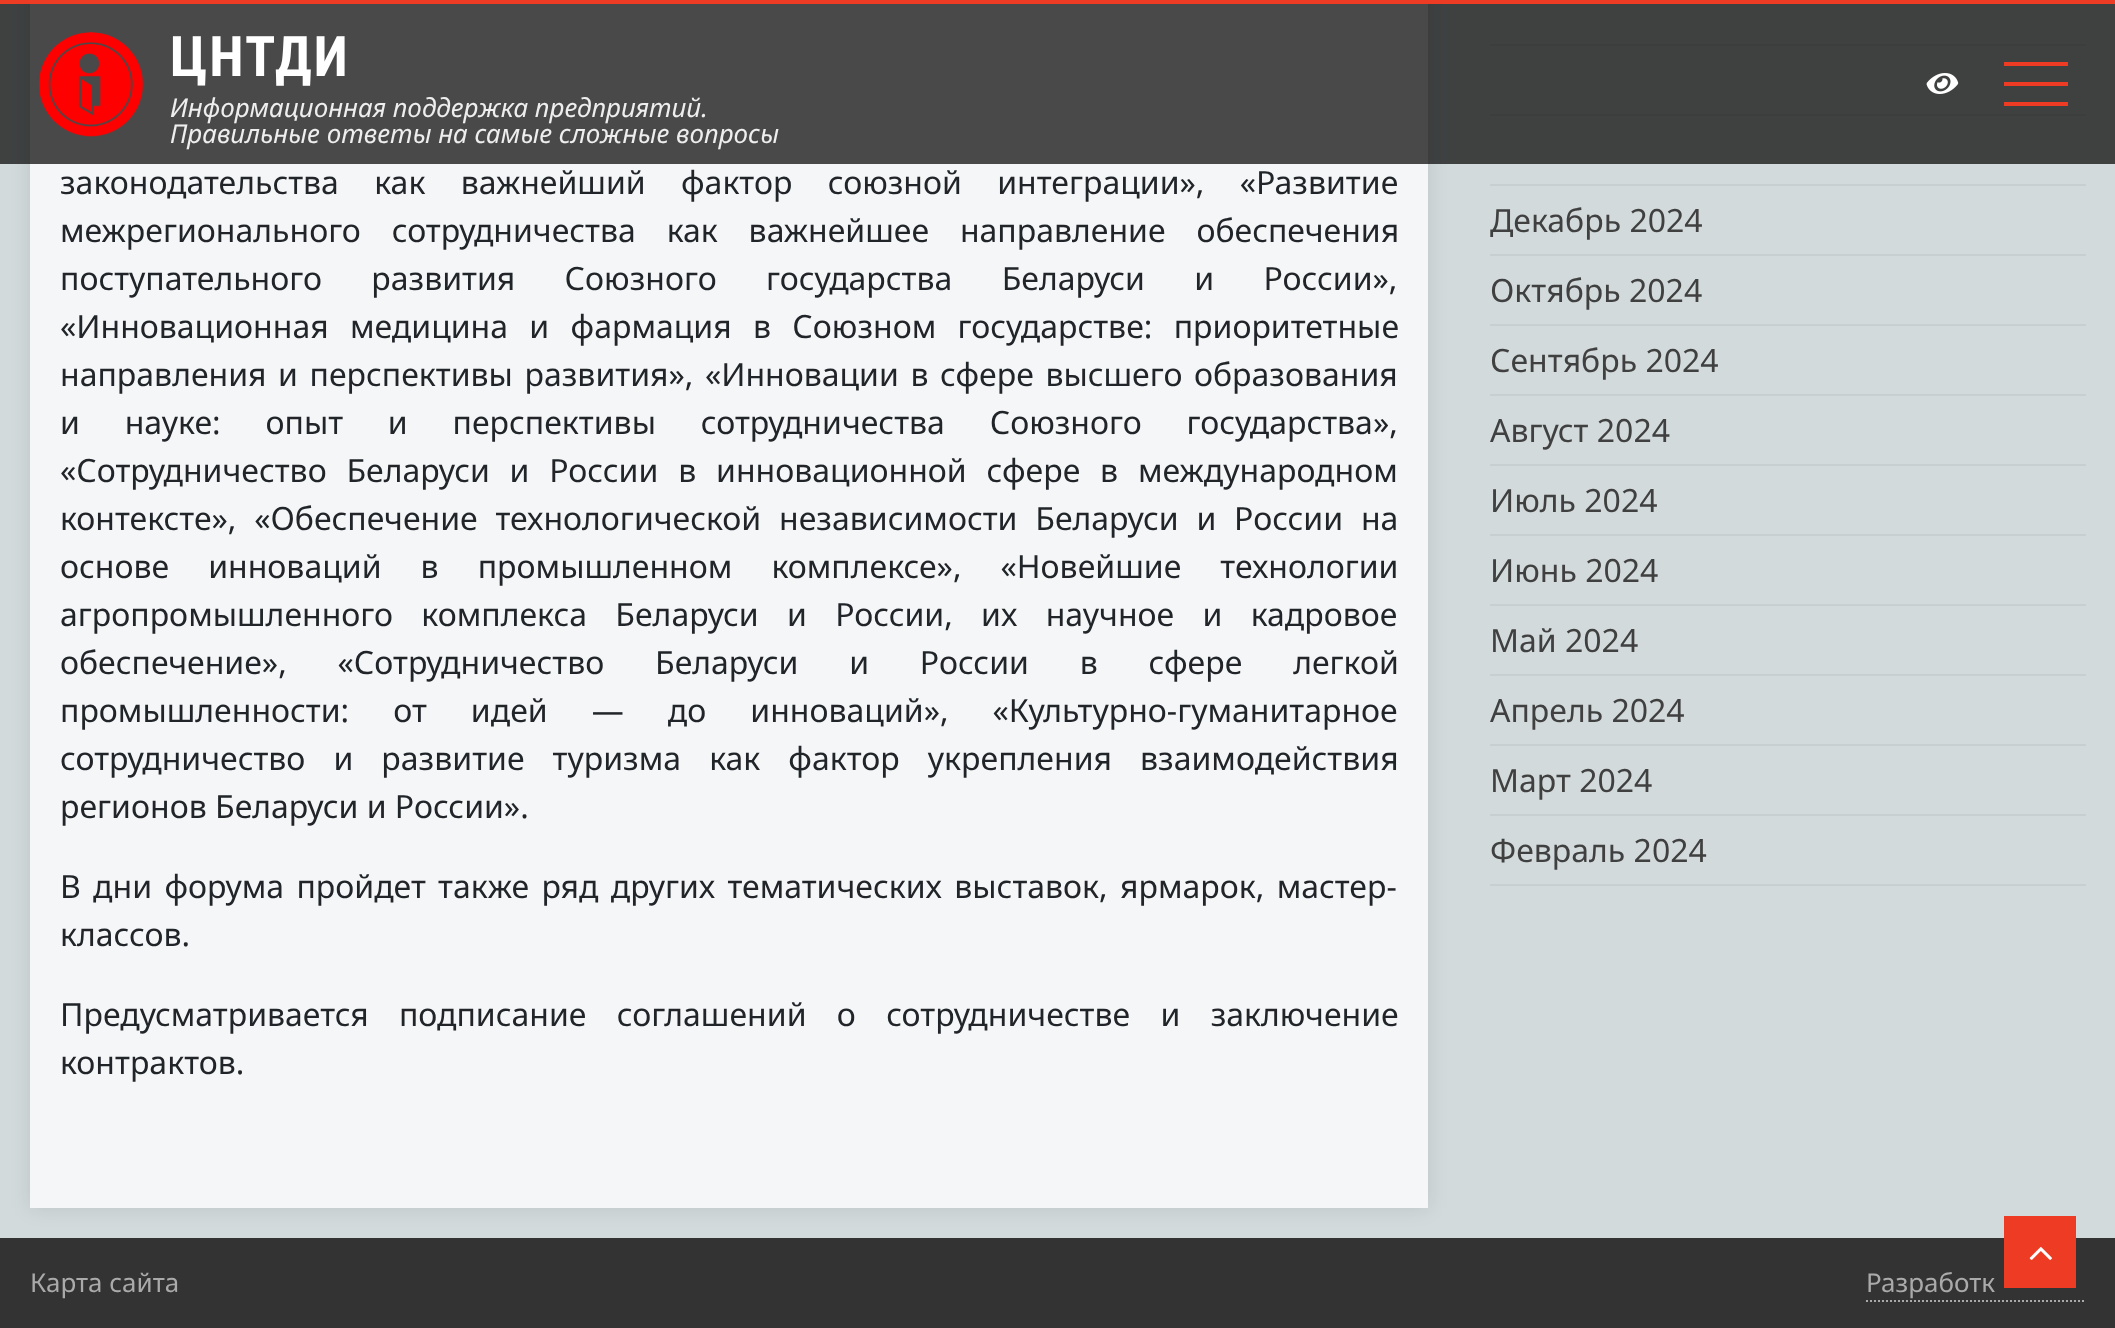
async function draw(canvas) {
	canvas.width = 2115;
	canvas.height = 1328;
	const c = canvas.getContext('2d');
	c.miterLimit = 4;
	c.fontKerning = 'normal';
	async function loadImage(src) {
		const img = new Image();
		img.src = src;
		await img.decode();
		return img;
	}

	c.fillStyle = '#d2dadb';
	c.fillRect(0, 0, 2115, 1328);
	c.fillStyle = '#0000001a';
	c.filter = 'blur(10px)';
	c.beginPath();
	c.rect(30, -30, 1398, 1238);
	c.fill();
	c.filter = 'none';
	for (const [x, y, w, h, color] of [
		[30, 4, 1398, 1204, '#f5f6f7'],
		[1490, 44, 596, 2, '#c8cfd0'],
		[1490, 114, 596, 2, '#c8cfd0'],
		[0, 4, 2115, 160, '#000000b3'],
		[0, 0, 2115, 4, '#ee3b24'],
	]) {
		c.fillStyle = color;
		c.fillRect(x, y, w, h);
	}
	c.drawImage(await loadImage('img1.png'), 38, 32, 106, 105);
	c.letterSpacing = '2px';
	c.font = 'bold 56px Roboto Condensed';
	c.fillStyle = '#fff';
	c.fillText('ЦНТДИ', 170, 76);
	c.letterSpacing = '0px';
	c.font = 'italic 26px Noto Sans';
	c.fillStyle = '#eee';
	c.fillText('Информационная поддержка предприятий.', 170, 117);
	c.fillText('Правильные ответы на самые сложные вопросы', 170, 143);
	c.drawImage(await loadImage('img2.png'), 1926, 73, 33, 21);
	for (const [x, y, w, h, color] of [
		[2004, 62, 64, 4, '#ee3b24'],
		[2004, 102, 64, 4, '#ee3b24'],
		[2004, 82, 64, 4, '#ee3b24'],
	]) {
		c.fillStyle = color;
		c.fillRect(x, y, w, h);
	}
	c.wordSpacing = '27px';
	c.font = '32px Noto Sans';
	c.fillStyle = '#212529';
	c.fillText('законодательства как важнейший фактор союзной интеграции», «Развитие', 60, 194);
	c.wordSpacing = '22.5px';
	c.fillText('межрегионального сотрудничества как важнейшее направление обеспечения', 60, 242);
	c.wordSpacing = '41px';
	c.fillText('поступательного развития Союзного государства Беларуси и России»,', 60, 290);
	c.wordSpacing = '13px';
	c.fillText('«Инновационная медицина и фармация в Союзном государстве: приоритетные', 60, 338);
	c.wordSpacing = '3.25px';
	c.fillText('направления и перспективы развития», «Инновации в сфере высшего образования', 60, 386);
	c.wordSpacing = '36.5px';
	c.fillText('и науке: опыт и перспективы сотрудничества Союзного государства»,', 60, 434);
	c.wordSpacing = '11.5px';
	c.fillText('«Сотрудничество Беларуси и России в инновационной сфере в международном', 60, 482);
	c.wordSpacing = '9.5px';
	c.fillText('контексте», «Обеспечение технологической независимости Беларуси и России на', 60, 530);
	c.wordSpacing = '30.75px';
	c.fillText('основе инноваций в промышленном комплексе», «Новейшие технологии', 60, 578);
	c.wordSpacing = '20px';
	c.fillText('агропромышленного комплекса Беларуси и России, их научное и кадровое', 60, 626);
	c.wordSpacing = '42.5px';
	c.fillText('обеспечение», «Сотрудничество Беларуси и России в сфере легкой', 60, 674);
	c.wordSpacing = '35.75px';
	c.fillText('промышленности: от идей — до инноваций», «Культурно-гуманитарное', 60, 722);
	c.wordSpacing = '19.75px';
	c.fillText('сотрудничество и развитие туризма как фактор укрепления взаимодействия', 60, 770);
	c.wordSpacing = '0px';
	c.fillText('регионов Беларуси и России».', 60, 818);
	c.wordSpacing = '4px';
	c.fillText('В дни форума пройдет также ряд других тематических выставок, ярмарок, мастер-', 60, 898);
	c.wordSpacing = '0px';
	c.fillText('классов.', 60, 946);
	c.wordSpacing = '22px';
	c.fillText('Предусматривается подписание соглашений о сотрудничестве и заключение', 60, 1026);
	c.wordSpacing = '0px';
	c.fillText('контрактов.', 60, 1074);
	c.fillStyle = '#c8cfd0';
	c.fillRect(1490, 184, 596, 2);
	c.fillRect(1490, 254, 596, 2);
	c.fillStyle = '#404040';
	c.fillText('Декабрь 2024', 1490, 232);
	c.fillStyle = '#c8cfd0';
	c.fillRect(1490, 324, 596, 2);
	c.fillStyle = '#404040';
	c.fillText('Октябрь 2024', 1490, 302);
	c.fillStyle = '#c8cfd0';
	c.fillRect(1490, 394, 596, 2);
	c.fillStyle = '#404040';
	c.fillText('Сентябрь 2024', 1490, 372);
	c.fillStyle = '#c8cfd0';
	c.fillRect(1490, 464, 596, 2);
	c.fillStyle = '#404040';
	c.fillText('Август 2024', 1490, 442);
	c.fillStyle = '#c8cfd0';
	c.fillRect(1490, 534, 596, 2);
	c.fillStyle = '#404040';
	c.fillText('Июль 2024', 1490, 512);
	c.fillStyle = '#c8cfd0';
	c.fillRect(1490, 604, 596, 2);
	c.fillStyle = '#404040';
	c.fillText('Июнь 2024', 1490, 582);
	c.fillStyle = '#c8cfd0';
	c.fillRect(1490, 674, 596, 2);
	c.fillStyle = '#404040';
	c.fillText('Май 2024', 1490, 652);
	c.fillStyle = '#c8cfd0';
	c.fillRect(1490, 744, 596, 2);
	c.fillStyle = '#404040';
	c.fillText('Апрель 2024', 1490, 722);
	c.fillStyle = '#c8cfd0';
	c.fillRect(1490, 814, 596, 2);
	c.fillStyle = '#404040';
	c.fillText('Март 2024', 1490, 792);
	c.fillStyle = '#c8cfd0';
	c.fillRect(1490, 884, 596, 2);
	c.fillStyle = '#404040';
	c.fillText('Февраль 2024', 1490, 862);
	c.fillStyle = '#333';
	c.fillRect(0, 1238, 2115, 90);
	c.font = '26px Noto Sans';
	c.fillStyle = '#aaa';
	c.fillText('Карта сайта', 30, 1292);
	c.fillText('Разработк', 1866, 1292);
	c.beginPath();
	c.moveTo(1866, 1301);
	c.lineTo(2086, 1301);
	c.strokeStyle = '#aaa';
	c.lineWidth = 2;
	c.setLineDash([2, 2]);
	c.stroke();
	c.fillStyle = '#ee3b24';
	c.fillRect(2004, 1216, 72, 72);
	c.drawImage(await loadImage('img3.png'), 2029, 1247, 23, 13);
}

draw(document.querySelector('canvas'));
